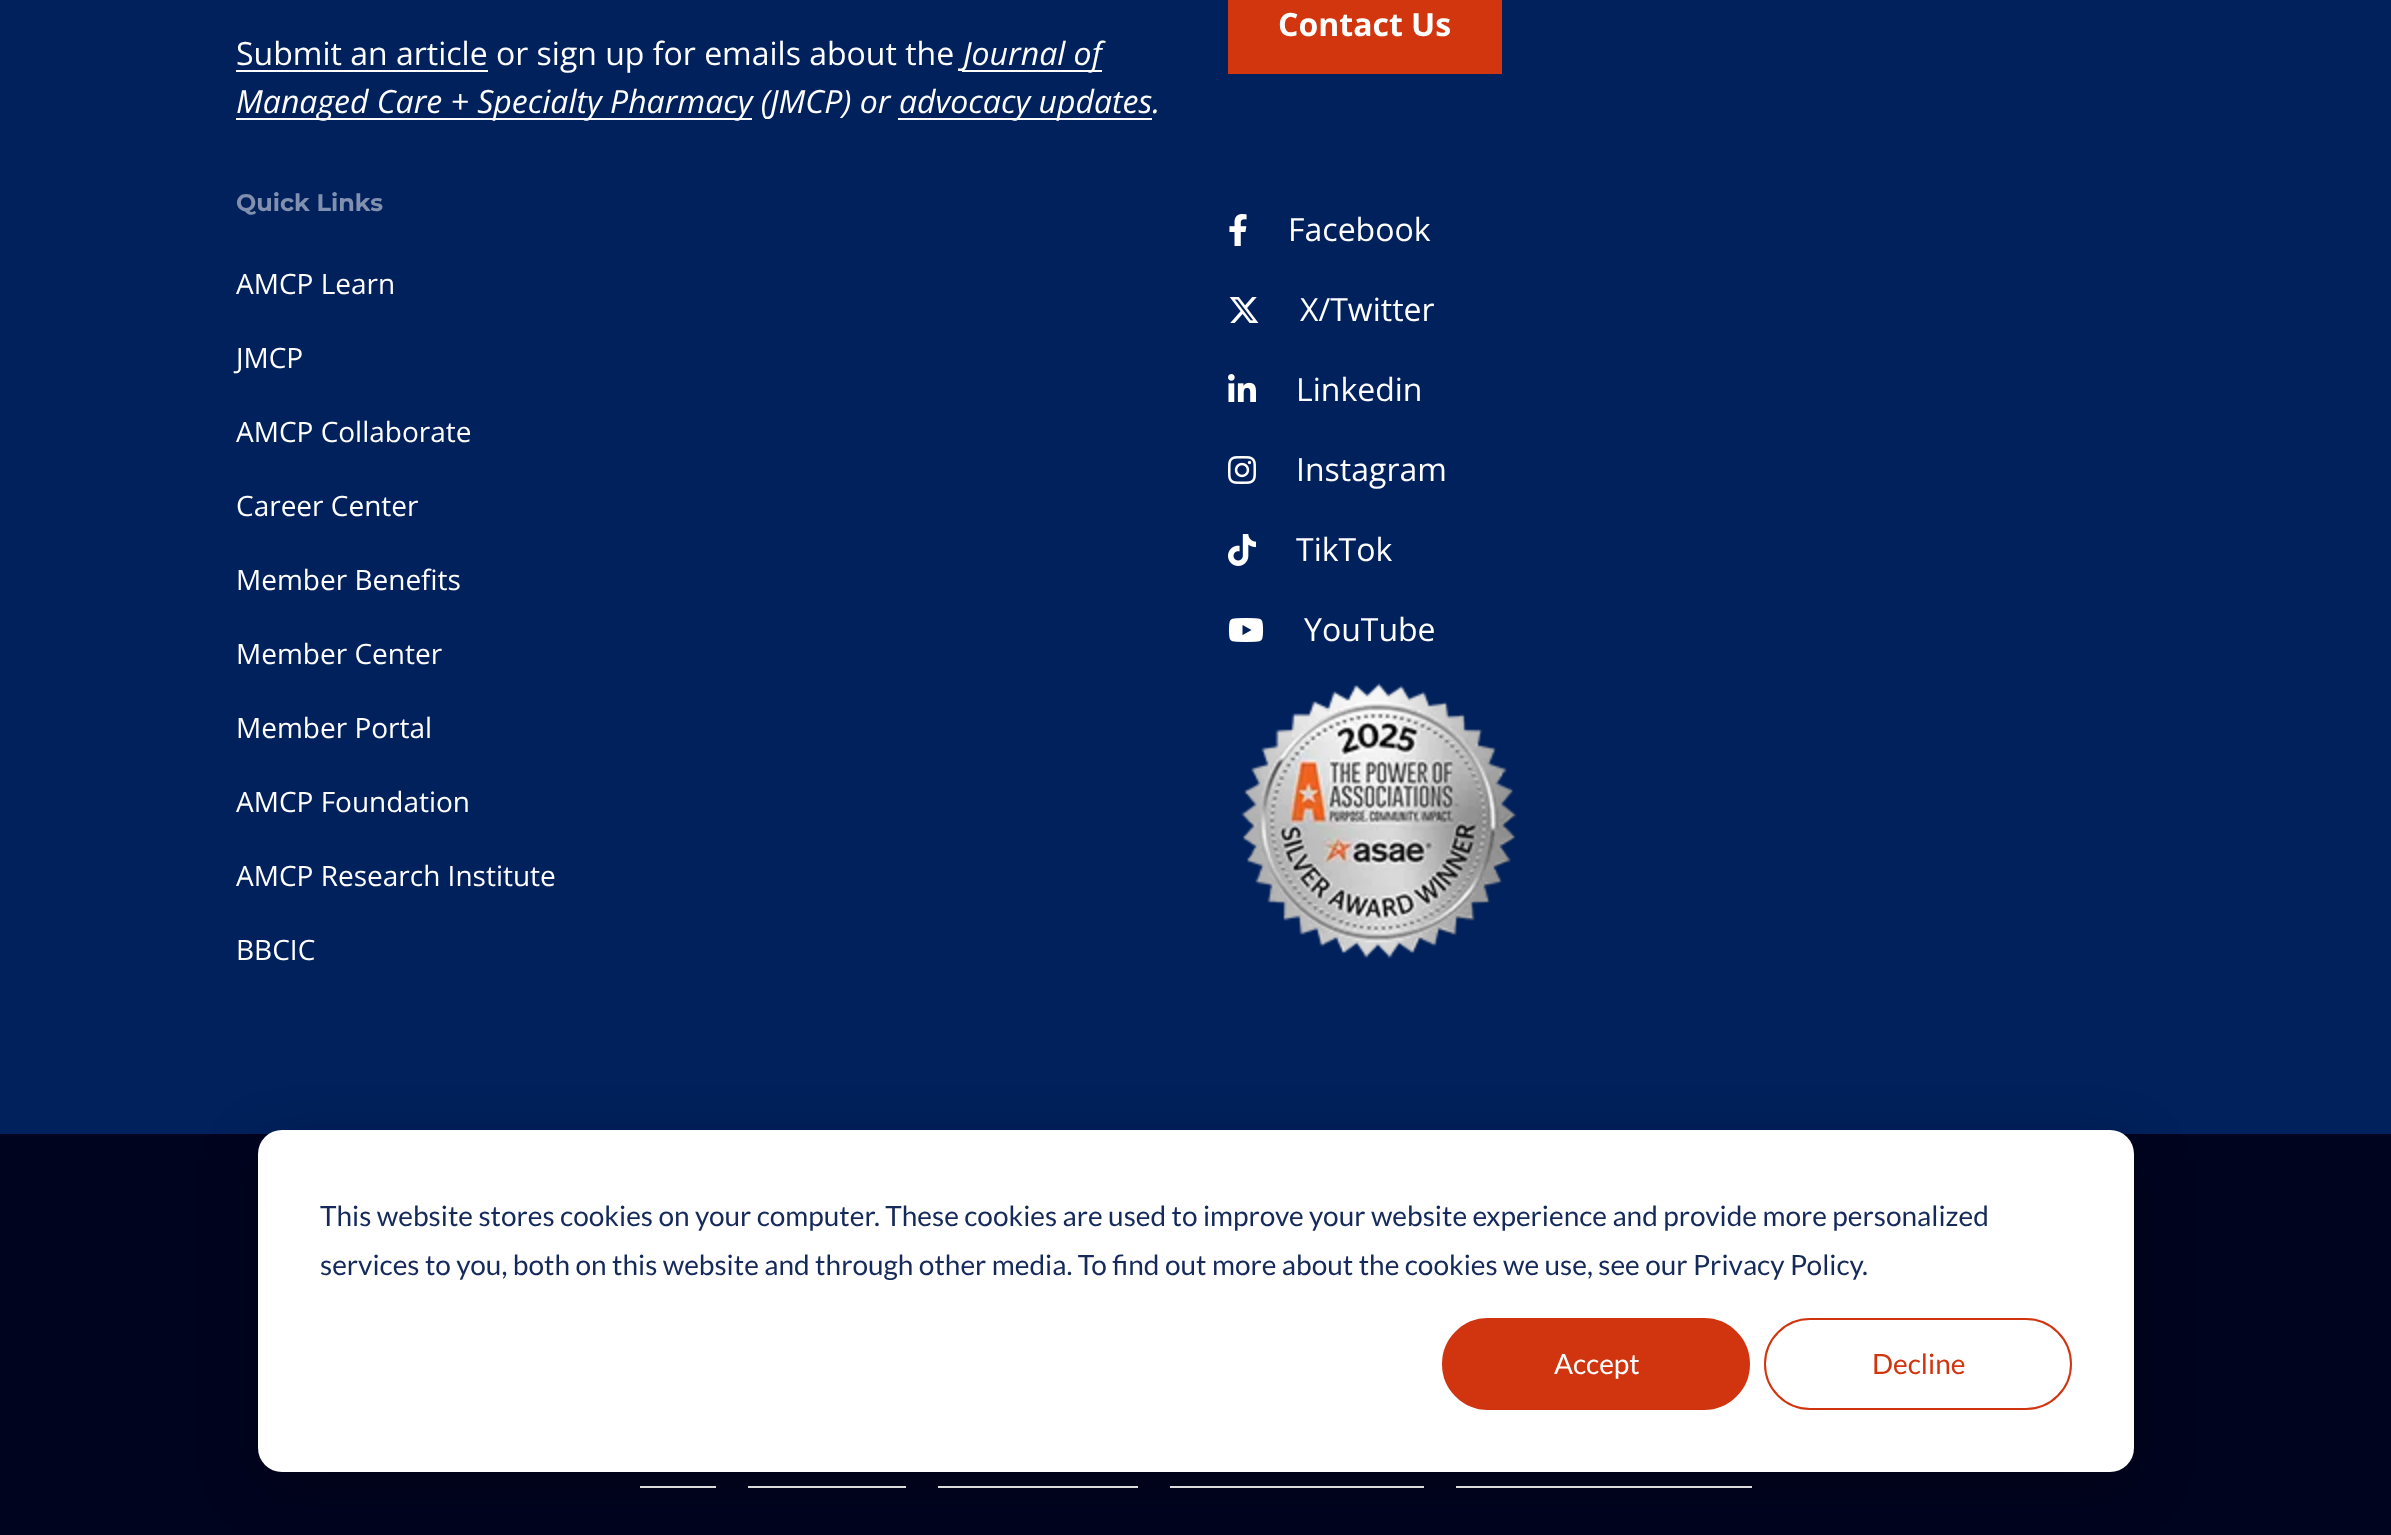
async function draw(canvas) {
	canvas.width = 2391;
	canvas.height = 1535;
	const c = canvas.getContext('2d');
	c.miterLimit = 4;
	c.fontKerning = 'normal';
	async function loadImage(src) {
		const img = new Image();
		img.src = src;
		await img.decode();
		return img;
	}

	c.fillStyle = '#00041f';
	c.fillRect(0, 0, 2391, 1535);
	c.fillStyle = '#00215c';
	c.fillRect(0, 0, 2391, 1134);
	c.fillStyle = '#d2360f';
	c.fillRect(1228, 0, 274, 74);
	c.font = 'bold 32px Open Sans';
	c.fillStyle = '#fff';
	c.fillText('Contact Us', 1278, 36);
	c.fillRect(236, 70, 252, 2);
	c.font = '32px Open Sans';
	c.fillText('Submit an article or sign up for emails about the', 236, 65);
	c.fillRect(962, 70, 140, 2);
	c.font = 'italic 32px Open Sans';
	c.fillText('Journal of', 963, 65);
	c.fillRect(236, 118, 516, 2);
	c.fillText('Managed Care + Specialty Pharmacy (JMCP) or', 236, 113);
	c.fillRect(898, 118, 254, 2);
	c.fillText('advocacy updates.', 899, 113);
	c.font = 'bold 24px Montserrat';
	c.fillStyle = '#8090ae';
	c.fillText('Quick Links', 236, 211);
	c.font = '28px Open Sans';
	c.fillStyle = '#fff';
	for (const [text, x, y] of [
		['AMCP Learn', 236, 294],
		['JMCP', 236, 368],
		['AMCP Collaborate', 236, 442],
		['Career Center', 236, 516],
		['Member Benefits', 236, 590],
		['Member Center', 236, 664],
		['Member Portal', 236, 738],
		['AMCP Foundation', 236, 812],
		['AMCP Research Institute', 236, 886],
		['BBCIC', 236, 960],
	]) {
		c.fillText(text, x, y);
	}
	c.drawImage(await loadImage('img1.png'), 1229, 214, 18, 32);
	c.font = '32px Open Sans';
	c.fillText('Facebook', 1288, 241);
	c.drawImage(await loadImage('img2.png'), 1229, 297, 30, 26);
	c.fillText('X/Twitter', 1300, 321);
	c.drawImage(await loadImage('img3.png'), 1228, 374, 28, 28);
	c.fillText('Linkedin', 1296, 401);
	c.drawImage(await loadImage('img4.png'), 1228, 456, 28, 28);
	c.fillText('Instagram', 1296, 481);
	c.drawImage(await loadImage('img5.png'), 1228, 534, 28, 32);
	c.fillText('TikTok', 1296, 561);
	c.drawImage(await loadImage('img6.png'), 1228, 618, 36, 24);
	c.fillText('YouTube', 1304, 641);
	c.drawImage(await loadImage('img7.png'), 1241, 683, 276, 276);
	for (const [x, y, w, h, color] of [
		[640, 1486, 76, 2, '#fff'],
		[748, 1486, 158, 2, '#fff'],
		[938, 1486, 200, 2, '#fff'],
		[1170, 1486, 254, 2, '#fff'],
		[1456, 1486, 296, 2, '#fff'],
	]) {
		c.fillStyle = color;
		c.fillRect(x, y, w, h);
	}
	c.fillStyle = '#00000047';
	c.filter = 'blur(28px)';
	c.beginPath();
	c.roundRect(258, 1146, 1876, 342, 24);
	c.fill();
	c.filter = 'none';
	c.fillStyle = '#fff';
	c.beginPath();
	c.roundRect(258, 1130, 1876, 342, 24);
	c.fill();
	c.font = '28px Lato';
	c.fillStyle = '#15295a';
	c.fillText('This website stores cookies on your computer. These cookies are used to improve your website experience and provide more personalized', 320, 1226);
	c.fillText('services to you, both on this website and through other media. To find out more about the cookies we use, see our Privacy Policy.', 320, 1275);
	c.fillStyle = '#d1350f';
	c.beginPath();
	c.roundRect(1443, 1319, 306, 90, 45);
	c.fill();
	c.strokeStyle = '#d1350f';
	c.lineWidth = 2;
	c.stroke();
	c.fillStyle = '#fff';
	c.fillText('Accept', 1554, 1374);
	c.beginPath();
	c.roundRect(1765, 1319, 306, 90, 45);
	c.stroke();
	c.fillStyle = '#d1350f';
	c.fillText('Decline', 1872, 1374);
}

draw(document.querySelector('canvas'));
